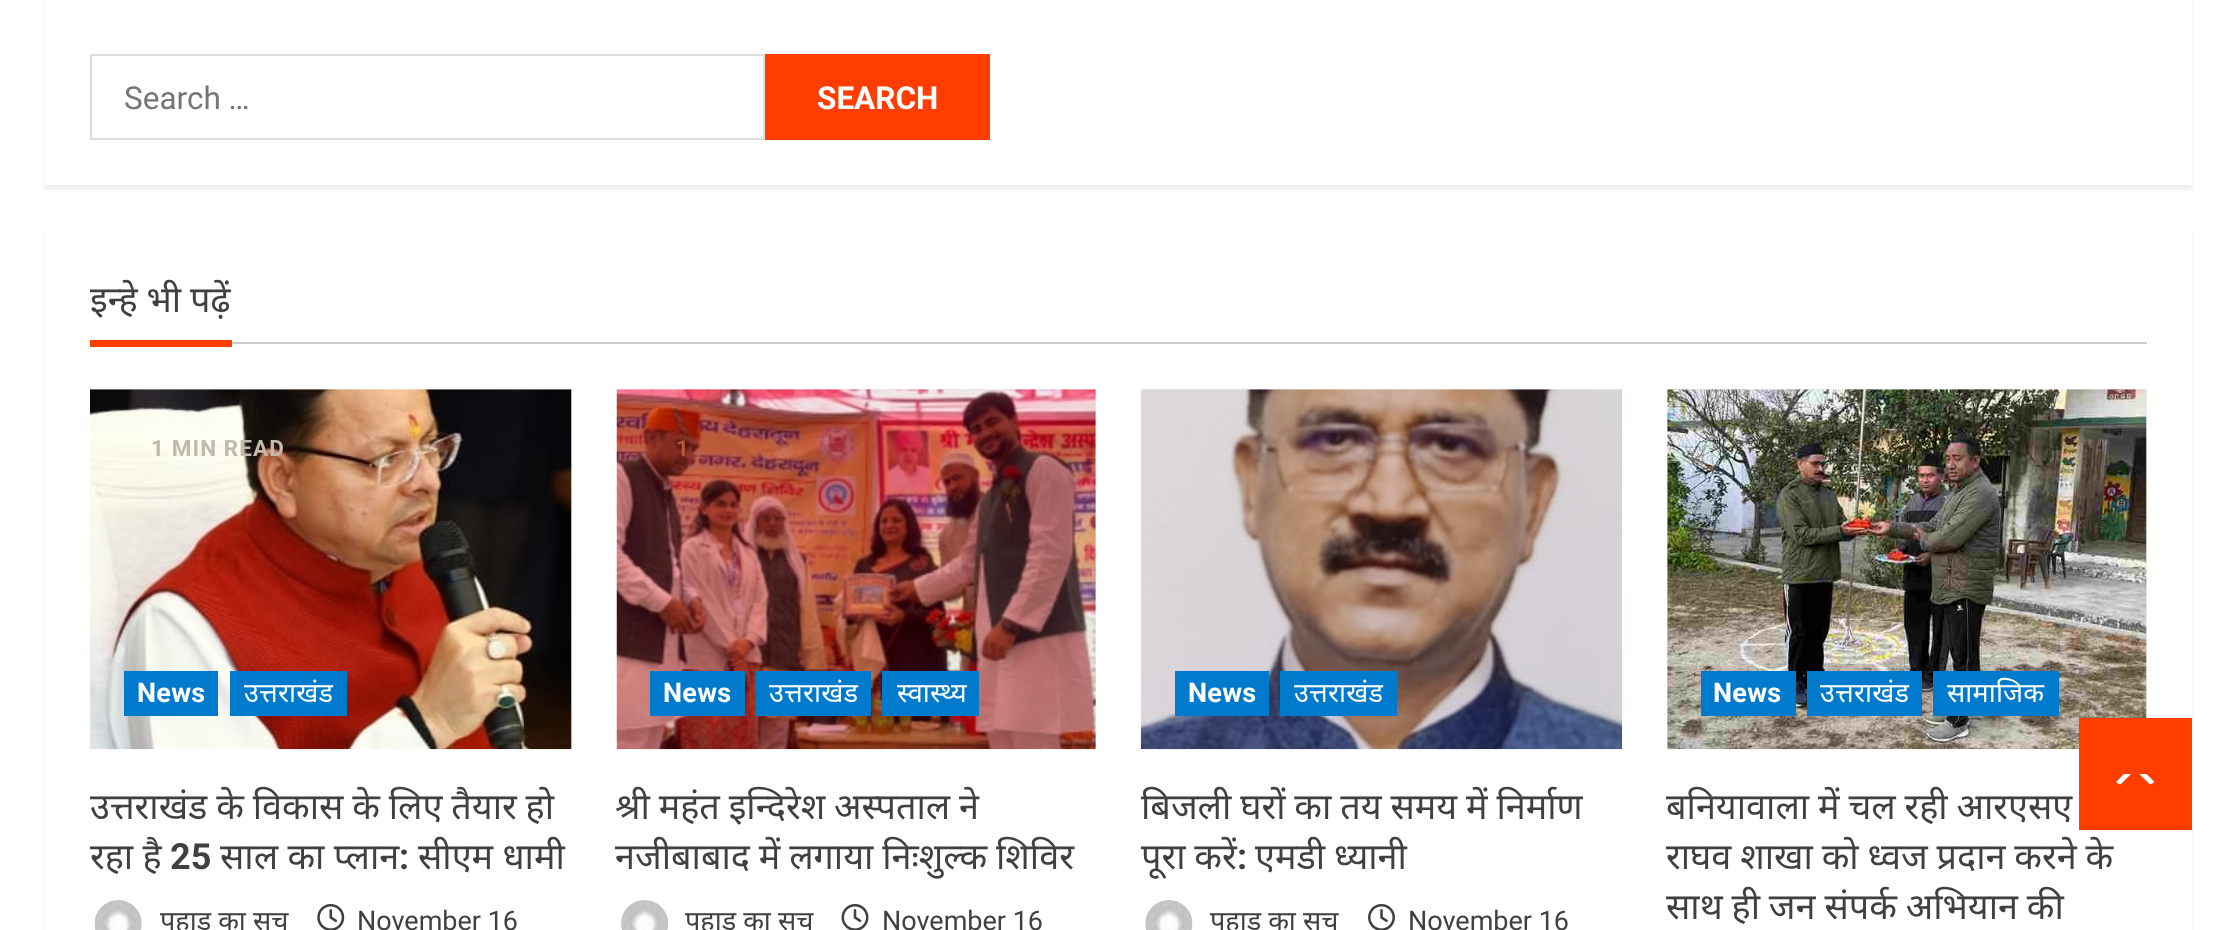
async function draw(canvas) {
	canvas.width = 2236;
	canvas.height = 930;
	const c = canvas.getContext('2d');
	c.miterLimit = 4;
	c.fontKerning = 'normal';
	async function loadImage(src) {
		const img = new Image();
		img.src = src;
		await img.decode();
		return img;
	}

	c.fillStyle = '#fff';
	c.fillRect(0, 0, 2236, 930);
	c.fillStyle = '#00000014';
	c.filter = 'blur(2px)';
	c.beginPath();
	c.rect(45, -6, 2147, 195);
	c.fill();
	c.filter = 'none';
	c.fillStyle = '#fff';
	c.fillRect(45, 0, 2147, 185);
	c.strokeStyle = '#dcdcdc';
	c.lineWidth = 2;
	c.strokeRect(91, 55, 673, 84);
	c.font = '31.5px Roboto';
	c.fillStyle = '#757575';
	c.fillText('Search …', 124, 109);
	c.fillStyle = '#ff3d00';
	c.fillRect(765, 54, 225, 86);
	c.font = 'bold 31.5px Roboto';
	c.fillStyle = '#fff';
	c.fillText('SEARCH', 817, 109);
	c.fillStyle = '#00000014';
	c.filter = 'blur(2px)';
	c.beginPath();
	c.rect(45, 234, 2147, 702);
	c.fill();
	c.filter = 'none';
	c.fillStyle = '#fff';
	c.fillRect(45, 232, 2147, 698);
	c.fillStyle = '#ccc';
	c.fillRect(232, 342, 1915, 2);
	c.wordSpacing = '-0.5px';
	c.font = '36px Noto Sans';
	c.fillStyle = '#404040';
	c.fillText('इन्हे भी पढ़ें', 90, 312);
	c.fillStyle = '#ff3d00';
	c.fillRect(90, 340, 142, 7);
	c.fillStyle = '#ececec';
	c.fillRect(90, 389, 482, 360);
	c.drawImage(await loadImage('img1.png'), 90, 389, 482, 361);
	c.letterSpacing = '1.1px';
	c.wordSpacing = '0px';
	c.font = 'bold 22.5px Roboto';
	c.fillStyle = '#c2b9ad';
	c.fillText('1 MIN READ', 151, 456);
	c.fillStyle = '#007acc';
	c.fillRect(124, 671, 94, 45);
	c.letterSpacing = '0.25px';
	c.font = 'bold 27px Roboto';
	c.fillStyle = '#fff';
	c.fillText('News', 137, 702);
	c.fillStyle = '#007acc';
	c.fillRect(230, 671, 117, 45);
	c.font = '27px Noto Sans';
	c.fillStyle = '#fff';
	c.fillText('उत्तराखंड', 244, 702);
	c.letterSpacing = '0px';
	c.wordSpacing = '-0.5px';
	c.font = '36px Noto Sans';
	c.fillStyle = '#404040';
	c.fillText('उत्तराखंड के विकास के लिए तैयार हो', 90, 819);
	c.wordSpacing = '0px';
	c.fillText('रहा है', 90, 869);
	c.font = 'bold 36px Roboto';
	c.fillText('25', 170, 869);
	c.font = '36px Noto Sans';
	c.fillText('साल का प्लान', 220, 869);
	c.font = 'bold 36px Roboto';
	c.fillText(':', 399, 869);
	c.font = '36px Noto Sans';
	c.fillText('सीएम धामी', 418, 869);
	c.drawImage(await loadImage('img2.png'), 94, 900, 48, 30);
	c.font = '27px Noto Sans';
	c.fillText('पहाड़ का सच', 160, 930);
	c.drawImage(await loadImage('img3.png'), 317, 903, 28, 27);
	c.font = '27px Roboto';
	c.fillText('November 16', 357, 930);
	c.fillStyle = '#ececec';
	c.fillRect(617, 389, 479, 360);
	c.drawImage(await loadImage('img4.png'), 616, 389, 480, 361);
	c.letterSpacing = '1.1px';
	c.font = 'bold 22.5px Roboto';
	c.fillStyle = '#b5573c';
	c.fillText('1', 676, 456);
	c.fillStyle = '#007acc';
	c.fillRect(650, 671, 95, 45);
	c.letterSpacing = '0.25px';
	c.font = 'bold 27px Roboto';
	c.fillStyle = '#fff';
	c.fillText('News', 663, 702);
	c.fillStyle = '#007acc';
	c.fillRect(756, 671, 115, 45);
	c.font = '27px Noto Sans';
	c.fillStyle = '#fff';
	c.fillText('उत्तराखंड', 769, 702);
	c.fillStyle = '#007acc';
	c.fillRect(882, 671, 97, 45);
	c.fillStyle = '#fff';
	c.fillText('स्वास्थ्य', 897, 702);
	c.letterSpacing = '0px';
	c.wordSpacing = '-0.5px';
	c.font = '36px Noto Sans';
	c.fillStyle = '#404040';
	c.fillText('श्री महंत इन्दिरेश अस्पताल ने', 615, 819);
	c.fillText('नजीबाबाद में लगाया निःशुल्क शिविर', 615, 869);
	c.drawImage(await loadImage('img5.png'), 621, 900, 47, 30);
	c.wordSpacing = '0px';
	c.font = '27px Noto Sans';
	c.fillText('पहाड़ का सच', 685, 930);
	c.drawImage(await loadImage('img6.png'), 841, 904, 28, 26);
	c.font = '27px Roboto';
	c.fillText('November 16', 882, 930);
	c.fillStyle = '#ececec';
	c.fillRect(1141, 389, 481, 1);
	c.drawImage(await loadImage('img7.png'), 1140, 389, 483, 361);
	c.fillStyle = '#007acc';
	c.fillRect(1175, 671, 94, 45);
	c.letterSpacing = '0.25px';
	c.font = 'bold 27px Roboto';
	c.fillStyle = '#fff';
	c.fillText('News', 1188, 702);
	c.fillStyle = '#007acc';
	c.fillRect(1280, 671, 117, 45);
	c.font = '27px Noto Sans';
	c.fillStyle = '#fff';
	c.fillText('उत्तराखंड', 1294, 702);
	c.letterSpacing = '0px';
	c.wordSpacing = '-0.5px';
	c.font = '36px Noto Sans';
	c.fillStyle = '#404040';
	c.fillText('बिजली घरों का तय समय में निर्माण', 1141, 819);
	c.fillText('पूरा करें', 1141, 869);
	c.wordSpacing = '0px';
	c.font = 'bold 36px Roboto';
	c.fillText(':', 1237, 869);
	c.wordSpacing = '-0.5px';
	c.font = '36px Noto Sans';
	c.fillText('एमडी ध्यानी', 1255, 869);
	c.drawImage(await loadImage('img8.png'), 1145, 900, 48, 30);
	c.wordSpacing = '0px';
	c.font = '27px Noto Sans';
	c.fillText('पहाड़ का सच', 1210, 930);
	c.drawImage(await loadImage('img9.png'), 1368, 903, 27, 27);
	c.font = '27px Roboto';
	c.fillText('November 16', 1408, 930);
	c.fillStyle = '#ececec';
	c.fillRect(1667, 389, 480, 360);
	c.drawImage(await loadImage('img10.png'), 1667, 389, 480, 361);
	c.fillStyle = '#007acc';
	c.fillRect(1701, 671, 95, 45);
	c.letterSpacing = '0.25px';
	c.font = 'bold 27px Roboto';
	c.fillStyle = '#fff';
	c.fillText('News', 1713, 702);
	c.fillStyle = '#007acc';
	c.fillRect(1807, 671, 115, 45);
	c.font = '27px Noto Sans';
	c.fillStyle = '#fff';
	c.fillText('उत्तराखंड', 1820, 702);
	c.fillStyle = '#007acc';
	c.fillRect(1933, 671, 126, 45);
	c.fillStyle = '#fff';
	c.fillText('सामाजिक', 1947, 702);
	c.letterSpacing = '0px';
	c.wordSpacing = '-0.5px';
	c.font = '36px Noto Sans';
	c.fillStyle = '#404040';
	for (const [text, x, y] of [
		['बनियावाला में चल रही आरएसए', 1666, 819],
		['राघव शाखा को ध्वज प्रदान करने के', 1666, 869],
		['साथ ही जन संपर्क अभियान की', 1666, 919],
	]) {
		c.fillText(text, x, y);
	}
	c.fillStyle = '#ff3d00';
	c.fillRect(2079, 718, 113, 112);
	c.fillStyle = '#fff';
	c.beginPath();
	c.moveTo(2154.5, 782);
	c.bezierCurveTo(2152.5, 784, 2149.5, 785, 2146, 785);
	c.lineTo(2124, 785);
	c.bezierCurveTo(2121, 785, 2118, 784, 2116, 782);
	c.lineTo(2124, 774);
	c.lineTo(2146.5, 774);
	c.closePath();
	c.fill();
	c.fillStyle = '#ff3d00';
	c.beginPath();
	c.moveTo(2158, 792);
	c.lineTo(2113, 792);
	c.lineTo(2135, 770);
	c.closePath();
	c.fill();
}

draw(document.querySelector('canvas'));
